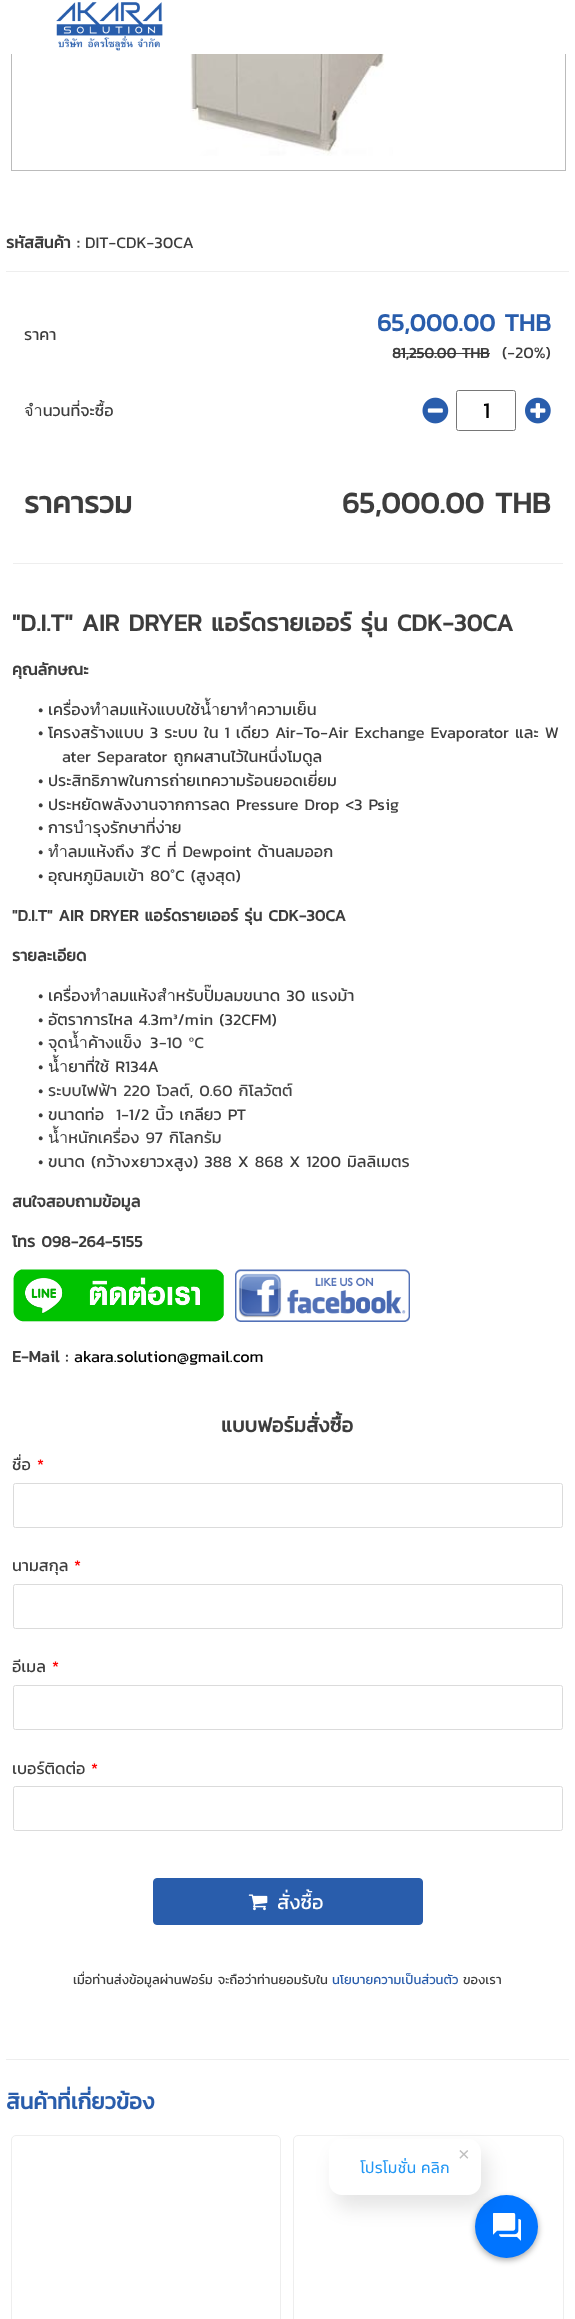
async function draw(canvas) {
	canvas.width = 575;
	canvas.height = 2319;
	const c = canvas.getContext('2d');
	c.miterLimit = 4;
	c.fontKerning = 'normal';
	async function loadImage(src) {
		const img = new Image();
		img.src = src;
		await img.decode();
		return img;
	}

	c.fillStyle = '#fff';
	c.fillRect(0, 0, 575, 2319);
	c.strokeStyle = '#bbb';
	c.strokeRect(11.5, -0.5, 554, 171);
	c.fillRect(11, 0, 555, 54);
	c.drawImage(await loadImage('img1.png'), 56, 2, 107, 49);
	c.drawImage(await loadImage('img2.png'), 190, 54, 203, 102);
	c.font = 'bold 16.25px Kanit';
	c.fillStyle = '#3d3d3d';
	c.fillText('รหัสสินค้า :', 6, 248);
	c.font = '16.25px Kanit';
	c.fillText('DIT-CDK-30CA', 85, 248);
	c.fillStyle = '#eee';
	c.fillRect(6, 271, 563, 1);
	c.fillRect(6, 2059, 563, 1);
	c.fillStyle = '#3d3d3d';
	c.fillText('ราคา', 24, 340);
	c.font = 'bold 25px Kanit';
	c.fillStyle = '#295dac';
	c.fillText('65,000.00 THB', 377, 331);
	c.font = 'bold 15px Kanit';
	c.fillStyle = '#3d3d3d';
	c.fillText('81,250.00 THB', 392, 358);
	c.fillRect(393, 353, 97, 1);
	c.font = '16.25px Kanit';
	c.fillText('(-20%)', 502, 358);
	c.fillText('จำนวนที่จะซื้อ', 24, 416);
	c.drawImage(await loadImage('img3.png'), 422, 397, 27, 27);
	c.beginPath();
	c.roundRect(456.5, 390.5, 59, 40, 2);
	c.strokeStyle = '#767676';
	c.stroke();
	c.font = '22.5px Kanit';
	c.fillStyle = '#000';
	c.fillText('1', 483, 418);
	c.drawImage(await loadImage('img4.png'), 525, 397, 26, 27);
	c.font = 'bold 30px Kanit';
	c.fillStyle = '#3d3d3d';
	c.fillText('ราคารวม', 24, 513);
	c.fillText('65,000.00 THB', 342, 513);
	c.fillStyle = '#eee';
	c.fillRect(13, 563, 550, 1);
	c.font = 'bold 24.4px Kanit';
	c.fillStyle = '#3d3d3d';
	c.fillText('"D.I.T" AIR DRYER แอร์ดรายเออร์ รุ่น CDK-30CA', 12, 631);
	c.font = 'bold 16.25px Kanit';
	c.fillText('คุณลักษณะ', 12, 675);
	c.font = '16.25px Kanit';
	for (const [text, x, y] of [
		['•', 38, 715],
		['เครื่องทำลมแห้งแบบใช้น้ำยาทำความเย็น', 48, 715],
		['•', 38, 738],
		['โครงสร้างแบบ 3 ระบบ ใน 1 เดียว Air-To-Air Exchange Evaporator และ W', 48, 738],
		['ater Separator ถูกผสานไว้ในหนึ่งโมดูล', 62, 762],
		['•', 38, 786],
		['ประสิทธิภาพในการถ่ายเทความร้อนยอดเยี่ยม', 48, 786],
		['•', 38, 810],
		['ประหยัดพลังงานจากการลด Pressure Drop <3 Psig', 48, 810],
		['•', 38, 833],
		['การบำรุงรักษาที่ง่าย', 48, 833],
		['ทำลมแห้งถึง 3', 48, 857],
	]) {
		c.fillText(text, x, y);
	}
	c.fillStyle = '#4d5156';
	c.fillText('°', 146, 857);
	c.fillStyle = '#3d3d3d';
	for (const [text, x, y] of [
		['C ที่ Dewpoint ด้านลมออก', 151, 857],
		['•', 38, 857],
		['•', 38, 881],
		['อุณหภูมิลมเข้า 80', 48, 881],
	]) {
		c.fillText(text, x, y);
	}
	c.fillStyle = '#4d5156';
	c.fillText('°', 170, 881);
	c.fillStyle = '#3d3d3d';
	c.fillText('C (สูงสุด)', 175, 881);
	c.font = 'bold 16.25px Kanit';
	c.fillText('"D.I.T" AIR DRYER แอร์ดรายเออร์ รุ่น CDK-30CA', 12, 921);
	c.fillText('รายละเอียด', 12, 961);
	c.font = '16.25px Kanit';
	for (const [text, x, y] of [
		['•', 38, 1001],
		['เครื่องทำลมแห้งสำหรับปั๊มลมขนาด 30 แรงม้า', 48, 1001],
		['•', 38, 1025],
		['อัตราการไหล 4.3m³/min (32CFM)', 48, 1025],
		['•', 38, 1048],
	]) {
		c.fillText(text, x, y);
	}
	c.fillStyle = '#444';
	c.fillText('จุดน้ำค้างแข็ง', 48, 1048);
	c.fillStyle = '#3d3d3d';
	c.fillText('3', 150, 1048);
	c.fillStyle = '#444';
	c.fillText('-10 ºC', 159, 1048);
	c.fillStyle = '#3d3d3d';
	for (const [text, x, y] of [
		['•', 38, 1072],
		['น้ำยาที่ใช้ R134A', 48, 1072],
		['•', 38, 1096],
	]) {
		c.fillText(text, x, y);
	}
	c.fillStyle = '#444';
	c.fillText('ระบบไฟฟ้า 220 โวลต์, 0.60 กิโลวัตต์', 48, 1096);
	c.fillStyle = '#3d3d3d';
	for (const [text, x, y] of [
		['•', 38, 1120],
		['ขนาดท่อ  1-1/2 นิ้ว เกลียว PT', 48, 1120],
		['•', 38, 1143],
	]) {
		c.fillText(text, x, y);
	}
	c.fillStyle = '#444';
	c.fillText('น้ำหนักเครื่อง 97 กิโลกรัม', 48, 1143);
	c.fillStyle = '#3d3d3d';
	c.fillText('•', 38, 1167);
	c.fillText('ขนาด (กว้างxยาวxสูง) 388 X 868 X 1200 มิลลิเมตร', 48, 1167);
	c.font = 'bold 16.25px Kanit';
	c.fillText('สนใจสอบถามข้อมูล', 12, 1207);
	c.fillText('โทร 098-264-5155', 12, 1247);
	c.drawImage(await loadImage('img5.png'), 13, 1269, 211, 53);
	c.drawImage(await loadImage('img6.png'), 235, 1269, 175, 53);
	c.fillText('E-Mail :', 12, 1362);
	c.font = '16.25px Kanit';
	c.fillStyle = '#000';
	c.fillText('akara.solution@gmail.com', 74, 1362);
	c.font = 'bold 20.25px Kanit';
	c.fillStyle = '#3d3d3d';
	c.fillText('แบบฟอร์มสั่งซื้อ', 221, 1432);
	c.font = '16.25px Kanit';
	c.fillText('ชื่อ', 12, 1470);
	c.fillStyle = '#f00';
	c.fillText('*', 37, 1470);
	c.beginPath();
	c.roundRect(13.5, 1483.5, 549, 44, 2);
	c.strokeStyle = '#dbdbdb';
	c.stroke();
	c.fillStyle = '#3d3d3d';
	c.fillText('นามสกุล', 12, 1571);
	c.fillStyle = '#f00';
	c.fillText('*', 74, 1571);
	c.beginPath();
	c.roundRect(13.5, 1584.5, 549, 44, 2);
	c.stroke();
	c.fillStyle = '#3d3d3d';
	c.fillText('อีเมล', 12, 1672);
	c.fillStyle = '#f00';
	c.fillText('*', 52, 1672);
	c.beginPath();
	c.roundRect(13.5, 1685.5, 549, 44, 2);
	c.stroke();
	c.fillStyle = '#3d3d3d';
	c.fillText('เบอร์ติดต่อ', 12, 1774);
	c.fillStyle = '#f00';
	c.fillText('*', 91, 1774);
	c.beginPath();
	c.roundRect(13.5, 1786.5, 549, 44, 2);
	c.stroke();
	c.fillStyle = '#295dac';
	c.beginPath();
	c.roundRect(153.5, 1878.5, 269, 46, 3.5);
	c.fill();
	c.strokeStyle = '#295dac';
	c.stroke();
	c.drawImage(await loadImage('img7.png'), 248, 1894, 20, 17);
	c.font = '20px Kanit';
	c.fillStyle = '#fff';
	c.fillText('สั่งซื้อ', 277, 1909);
	c.font = '13px Kanit';
	c.fillStyle = '#3d3d3d';
	c.fillText('เมื่อท่านส่งข้อมูลผ่านฟอร์ม จะถือว่าท่านยอมรับใน', 73, 1984);
	c.fillStyle = '#295dac';
	c.fillText('นโยบายความเป็นส่วนตัว', 332, 1984);
	c.fillStyle = '#3d3d3d';
	c.fillText('ของเรา', 463, 1984);
	c.font = 'bold 22.5px Kanit';
	c.fillStyle = '#295dac';
	c.fillText('สินค้าที่เกี่ยวข้อง', 6, 2109);
	c.beginPath();
	c.roundRect(11.5, 2135.5, 269, 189, 4.5);
	c.strokeStyle = '#eee';
	c.stroke();
	c.beginPath();
	c.roundRect(293.5, 2135.5, 270, 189, 4.5);
	c.stroke();
	c.fillStyle = '#00000059';
	c.filter = 'blur(3px)';
	c.beginPath();
	c.roundRect(475, 2198, 63, 62, 31);
	c.fill();
	c.filter = 'none';
	c.fillStyle = '#0074ff';
	c.beginPath();
	c.arc(506.5, 2226.5, 31.5, 0, 2 * Math.PI);
	c.fill();
	c.drawImage(await loadImage('img8.png'), 493, 2213, 28, 28);
	c.save();
	c.beginPath();
	c.moveTo(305, 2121);
	c.lineTo(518, 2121);
	c.lineTo(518, 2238);
	c.lineTo(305, 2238);
	c.closePath();
	c.moveTo(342, 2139);
	c.lineTo(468, 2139);
	c.bezierCurveTo(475, 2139, 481, 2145, 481, 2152);
	c.lineTo(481, 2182);
	c.bezierCurveTo(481, 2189, 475, 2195, 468, 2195);
	c.lineTo(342, 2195);
	c.bezierCurveTo(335, 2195, 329, 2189, 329, 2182);
	c.lineTo(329, 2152);
	c.bezierCurveTo(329, 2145, 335, 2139, 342, 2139);
	c.closePath();
	c.clip('evenodd');
	c.fillStyle = '#0000001a';
	c.filter = 'blur(9.5px)';
	c.beginPath();
	c.roundRect(335, 2151, 153, 57, 13);
	c.fill();
	c.filter = 'none';
	c.restore();
	c.font = '20px Liberation Sans';
	c.fillStyle = '#c0c0c0';
	c.fillText('×', 458, 2161);
	c.font = '16.25px Noto Sans Thai UI';
	c.fillStyle = '#2196f3';
	c.fillText('โปรโมชั่น คลิก', 360, 2173);
}

draw(document.querySelector('canvas'));
